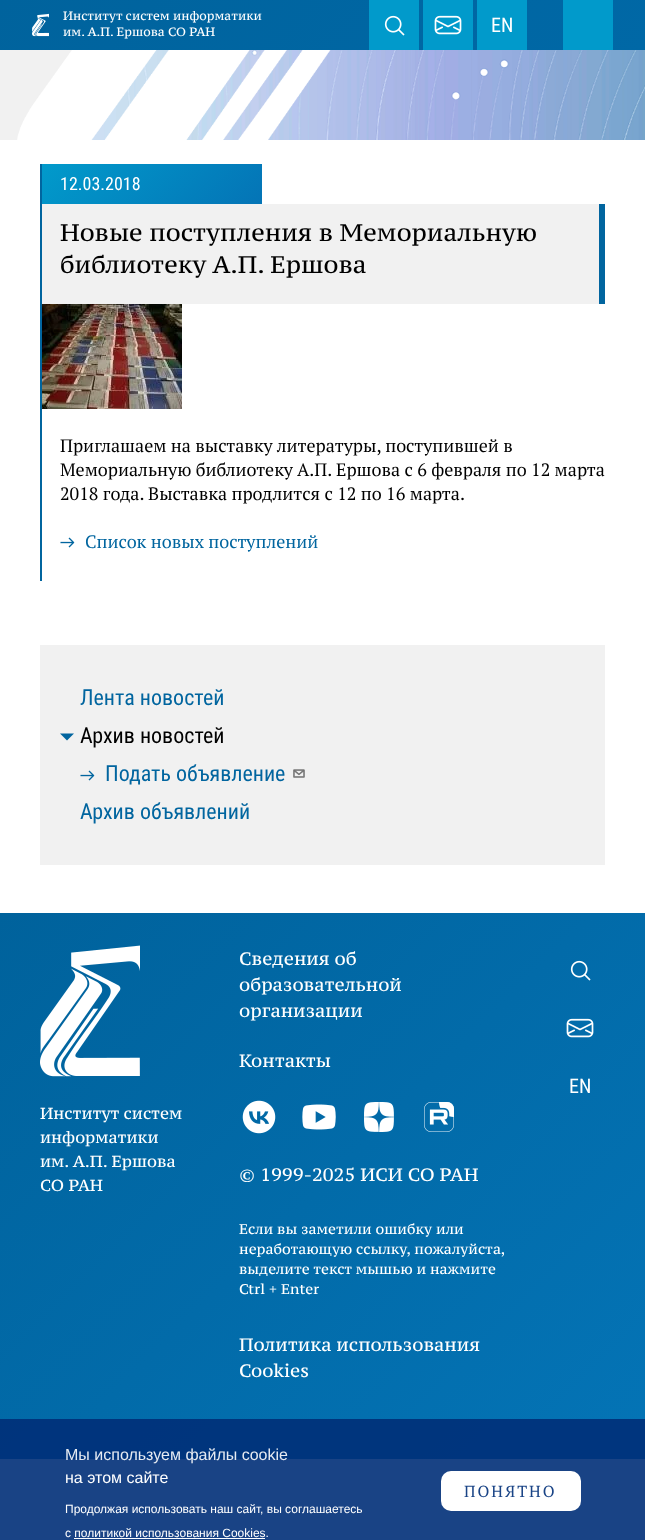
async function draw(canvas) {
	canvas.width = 645;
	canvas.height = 1540;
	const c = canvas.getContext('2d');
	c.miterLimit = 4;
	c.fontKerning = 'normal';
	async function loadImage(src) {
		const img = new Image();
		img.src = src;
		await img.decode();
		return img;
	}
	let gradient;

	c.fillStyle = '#fff';
	c.fillRect(0, 0, 645, 1540);
	gradient = c.createLinearGradient(149, -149, 496, 199);
	gradient.addColorStop(0, '#00639d');
	gradient.addColorStop(1, '#0068a6');
	c.fillStyle = gradient;
	c.fillRect(0, 0, 645, 50);
	c.drawImage(await loadImage('img1.png'), 32, 13, 17, 24);
	c.font = '12px PT Serif Caption';
	c.fillStyle = '#fff';
	c.fillText('Институт систем информатики', 63, 20);
	c.fillText('им. А.П. Ершова СО РАН', 63, 36);
	c.fillStyle = '#019acb';
	c.fillRect(369, 0, 50, 50);
	c.drawImage(await loadImage('img2.png'), 384, 15, 21, 21);
	c.fillRect(423, 0, 50, 50);
	c.drawImage(await loadImage('img3.png'), 434, 15, 28, 20);
	c.fillRect(477, 0, 50, 50);
	c.font = '20px Roboto Condensed';
	c.fillStyle = '#fff';
	c.fillText('EN', 491, 32);
	c.fillStyle = '#019acb';
	c.fillRect(563, 0, 50, 50);
	c.fillStyle = '#f1f1f1';
	c.fillRect(0, 50, 18, 90);
	c.drawImage(await loadImage('img4.png'), 17, 50, 628, 90);
	c.fillStyle = '#01659f';
	c.fillRect(40, 164, 2, 417);
	gradient = c.createLinearGradient(87, 119, 217, 249);
	gradient.addColorStop(0, '#019acb');
	gradient.addColorStop(1, '#0474b6');
	c.fillStyle = gradient;
	c.fillRect(42, 164, 220, 40);
	c.font = '18px Roboto Condensed';
	c.fillStyle = '#fff';
	c.fillText('12.03.2018', 60, 190);
	c.fillStyle = '#f1f1f1';
	c.fillRect(42, 204, 557, 100);
	c.fillStyle = '#01659f';
	c.fillRect(599, 204, 6, 100);
	c.font = '24px PT Serif Caption';
	c.fillStyle = '#000';
	c.fillText('Новые поступления в Мемориальную', 60, 241);
	c.fillText('библиотеку А.П. Ершова', 60, 273);
	c.drawImage(await loadImage('img5.png'), 42, 304, 140, 105);
	c.font = '18px PT Serif';
	for (const [text, x, y] of [
		['Приглашаем на выставку литературы, поступившей в', 60, 452],
		['Мемориальную библиотеку А.П. Ершова с 6 февраля по 12 марта', 60, 476],
		['2018 года. Выставка продлится с 12 по 16 марта.', 60, 500],
	]) {
		c.fillText(text, x, y);
	}
	c.drawImage(await loadImage('img6.png'), 60, 537, 15, 11);
	c.fillStyle = '#01659f';
	c.fillText('Список новых поступлений', 85, 548);
	c.fillStyle = '#f1f1f1';
	c.fillRect(40, 645, 565, 220);
	c.font = '22px Roboto Condensed';
	c.fillStyle = '#01659f';
	c.fillText('Лента новостей', 80, 705);
	c.beginPath();
	c.moveTo(74, 733.5);
	c.lineTo(67, 740.5);
	c.lineTo(60, 733.5);
	c.closePath();
	c.fill();
	c.fillStyle = '#000';
	c.fillText('Архив новостей', 80, 743);
	c.drawImage(await loadImage('img7.png'), 80, 770, 15, 11);
	c.fillStyle = '#01659f';
	c.fillText('Подать объявление', 105, 781);
	c.drawImage(await loadImage('img8.png'), 293, 769, 12, 9);
	c.fillText('Архив объявлений', 80, 819);
	gradient = c.createLinearGradient(25, 888, 620, 1484);
	gradient.addColorStop(0, '#00629c');
	gradient.addColorStop(1, '#0474b6');
	c.fillStyle = gradient;
	c.fillRect(0, 913, 645, 546);
	c.font = '18px PT Serif Caption';
	c.fillStyle = '#fff';
	for (const [text, x, y] of [
		['Сведения об', 239, 965],
		['образовательной', 239, 991],
		['организации', 239, 1017],
		['Контакты', 239, 1067],
	]) {
		c.fillText(text, x, y);
	}
	c.drawImage(await loadImage('img9.png'), 242, 1100, 34, 34);
	c.drawImage(await loadImage('img10.png'), 302, 1104, 34, 26);
	c.drawImage(await loadImage('img11.png'), 364, 1102, 30, 30);
	c.drawImage(await loadImage('img12.png'), 424, 1102, 30, 30);
	c.fillText('© 1999-2025 ИСИ СО РАН', 239, 1181);
	c.font = '14px PT Serif Caption';
	for (const [text, x, y] of [
		['Если вы заметили ошибку или', 239, 1234],
		['неработающую ссылку, пожалуйста,', 239, 1254],
		['выделите текст мышью и нажмите', 239, 1274],
		['Ctrl + Enter', 239, 1294],
	]) {
		c.fillText(text, x, y);
	}
	c.font = '18px PT Serif Caption';
	c.fillText('Политика использования', 239, 1351);
	c.fillText('Cookies', 239, 1377);
	c.drawImage(await loadImage('img13.png'), 570, 960, 21, 21);
	c.drawImage(await loadImage('img14.png'), 566, 1018, 28, 20);
	c.font = '20px Roboto Condensed';
	c.fillText('EN', 569, 1093);
	c.drawImage(await loadImage('img15.png'), 40, 945, 100, 132);
	c.font = '16px PT Serif Caption';
	for (const [text, x, y] of [
		['Институт систем', 40, 1119],
		['информатики', 40, 1143],
		['им. А.П. Ершова', 40, 1167],
		['СО РАН', 40, 1191],
	]) {
		c.fillText(text, x, y);
	}
	c.fillStyle = '#002f78e6';
	c.fillRect(0, 1419, 645, 121);
	c.font = '16px Liberation Sans';
	c.fillStyle = '#e6ebf2';
	c.fillText('Мы используем файлы cookie', 65, 1460);
	c.fillStyle = '#fff';
	c.fillText('на этом сайте', 65, 1483);
	c.font = '12px Liberation Sans';
	c.fillText('Продолжая использовать наш сайт, вы соглашаетесь', 65, 1513);
	c.fillText('с политикой использования Cookies.', 65, 1537);
	c.fillRect(74, 1538, 191, 1);
	c.beginPath();
	c.roundRect(441, 1471, 140, 40, 10);
	c.fill();
	c.letterSpacing = '2px';
	c.font = '16px PT Serif';
	c.fillStyle = '#1a4486';
	c.fillText('ПОНЯТНО', 464, 1497);
}

draw(document.querySelector('canvas'));
